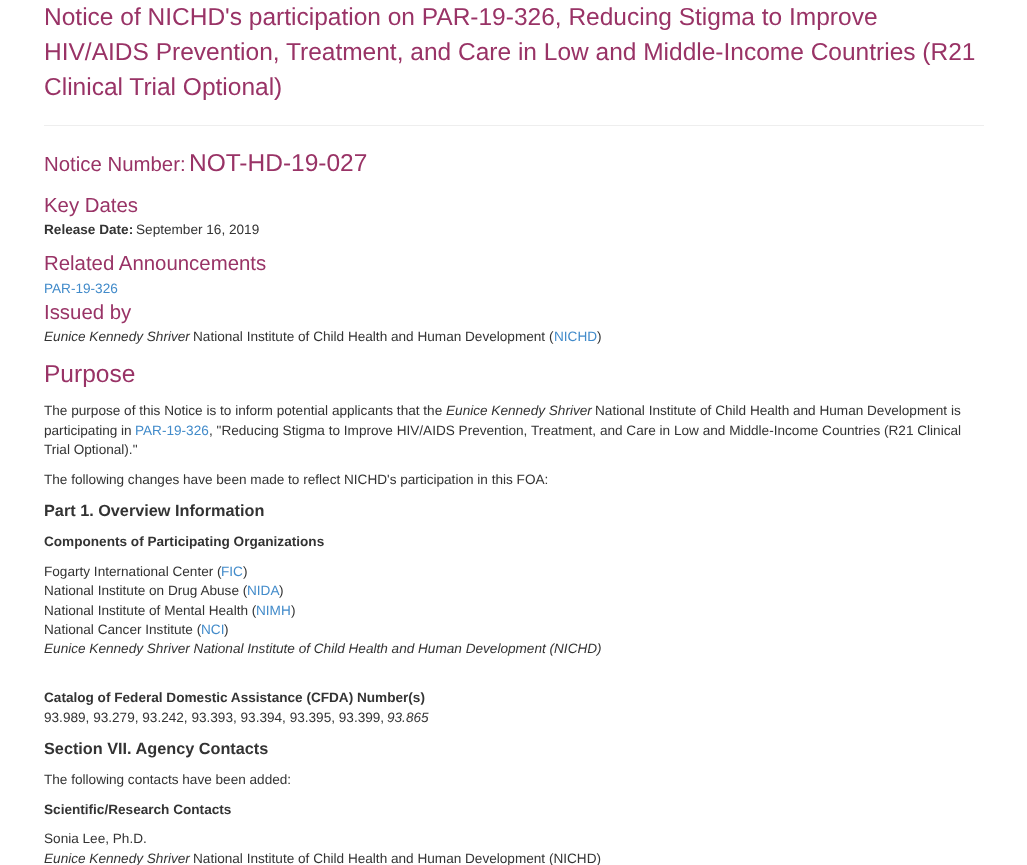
async function draw(canvas) {
	canvas.width = 1027;
	canvas.height = 865;
	const c = canvas.getContext('2d');
	c.miterLimit = 4;
	c.fontKerning = 'normal';

	c.fillStyle = '#fff';
	c.fillRect(0, 0, 1027, 865);
	c.font = '24.5px Liberation Sans';
	c.fillStyle = '#936';
	for (const [text, x, y] of [
		['Notice of NICHD\'s participation on PAR-19-326, Reducing Stigma to Improve', 44, 25],
		['HIV/AIDS Prevention, Treatment, and Care in Low and Middle-Income Countries (R21', 44, 60],
		['Clinical Trial Optional)', 44, 95],
	]) {
		c.fillText(text, x, y);
	}
	c.fillStyle = '#eee';
	c.fillRect(44, 125, 940, 1);
	c.font = '20.4px Liberation Sans';
	c.fillStyle = '#936';
	c.fillText('Notice Number:', 44, 171);
	c.font = '24.5px Liberation Sans';
	c.fillText('NOT-HD-19-027', 189, 171);
	c.font = '20.4px Liberation Sans';
	c.fillText('Key Dates', 44, 212);
	c.font = 'bold 13.6px Liberation Sans';
	c.fillStyle = '#333';
	c.fillText('Release Date:', 44, 234);
	c.font = '13.6px Liberation Sans';
	c.fillText('September 16, 2019', 136, 234);
	c.font = '20.4px Liberation Sans';
	c.fillStyle = '#936';
	c.fillText('Related Announcements', 44, 270);
	c.font = '13.6px Liberation Sans';
	c.fillStyle = '#428bca';
	c.fillText('PAR-19-326', 44, 293);
	c.font = '20.4px Liberation Sans';
	c.fillStyle = '#936';
	c.fillText('Issued by', 44, 319);
	c.font = 'italic 13.6px Liberation Sans';
	c.fillStyle = '#333';
	c.fillText('Eunice Kennedy Shriver', 44, 341);
	c.font = '13.6px Liberation Sans';
	c.fillText('National Institute of Child Health and Human Development (', 193, 341);
	c.fillStyle = '#428bca';
	c.fillText('NICHD', 554, 341);
	c.fillStyle = '#333';
	c.fillText(')', 597, 341);
	c.font = '24.5px Liberation Sans';
	c.fillStyle = '#936';
	c.fillText('Purpose', 44, 382);
	c.font = '13.6px Liberation Sans';
	c.fillStyle = '#333';
	c.fillText('The purpose of this Notice is to inform potential applicants that the', 44, 415);
	c.font = 'italic 13.6px Liberation Sans';
	c.fillText('Eunice Kennedy Shriver', 446, 415);
	c.font = '13.6px Liberation Sans';
	c.fillText('National Institute of Child Health and Human Development is', 595, 415);
	c.fillText('participating in', 44, 435);
	c.fillStyle = '#428bca';
	c.fillText('PAR-19-326', 135, 435);
	c.fillStyle = '#333';
	for (const [text, x, y] of [
		[', "Reducing Stigma to Improve HIV/AIDS Prevention, Treatment, and Care in Low and Middle-Income Countries (R21 Clinical', 209, 435],
		['Trial Optional)."', 44, 454],
		['The following changes have been made to reflect NICHD\'s participation in this FOA:', 44, 484],
	]) {
		c.fillText(text, x, y);
	}
	c.font = 'bold 16.25px Liberation Sans';
	c.fillText('Part 1. Overview Information', 44, 516);
	c.font = 'bold 13.6px Liberation Sans';
	c.fillText('Components of Participating Organizations', 44, 546);
	c.font = '13.6px Liberation Sans';
	c.fillText('Fogarty International Center (', 44, 576);
	c.fillStyle = '#428bca';
	c.fillText('FIC', 221, 576);
	c.fillStyle = '#333';
	c.fillText(')', 243, 576);
	c.fillText('National Institute on Drug Abuse (', 44, 595);
	c.fillStyle = '#428bca';
	c.fillText('NIDA', 247, 595);
	c.fillStyle = '#333';
	c.fillText(')', 279, 595);
	c.fillText('National Institute of Mental Health (', 44, 615);
	c.fillStyle = '#428bca';
	c.fillText('NIMH', 256, 615);
	c.fillStyle = '#333';
	c.fillText(')', 291, 615);
	c.fillText('National Cancer Institute (', 44, 634);
	c.fillStyle = '#428bca';
	c.fillText('NCI', 201, 634);
	c.fillStyle = '#333';
	c.fillText(')', 224, 634);
	c.font = 'italic 13.6px Liberation Sans';
	c.fillText('Eunice Kennedy Shriver National Institute of Child Health and Human Development (NICHD)', 44, 653);
	c.font = 'bold 13.6px Liberation Sans';
	c.fillText('Catalog of Federal Domestic Assistance (CFDA) Number(s)', 44, 702);
	c.font = '13.6px Liberation Sans';
	c.fillText('93.989, 93.279, 93.242, 93.393, 93.394, 93.395, 93.399,', 44, 722);
	c.font = 'italic 13.6px Liberation Sans';
	c.fillText('93.865', 387, 722);
	c.font = 'bold 16.25px Liberation Sans';
	c.fillText('Section VII. Agency Contacts', 44, 754);
	c.font = '13.6px Liberation Sans';
	c.fillText('The following contacts have been added:', 44, 784);
	c.font = 'bold 13.6px Liberation Sans';
	c.fillText('Scientific/Research Contacts', 44, 814);
	c.font = '13.6px Liberation Sans';
	c.fillText('Sonia Lee, Ph.D.', 44, 843);
	c.font = 'italic 13.6px Liberation Sans';
	c.fillText('Eunice Kennedy Shriver', 44, 863);
	c.font = '13.6px Liberation Sans';
	c.fillText('National Institute of Child Health and Human Development (NICHD)', 193, 863);
}

draw(document.querySelector('canvas'));
